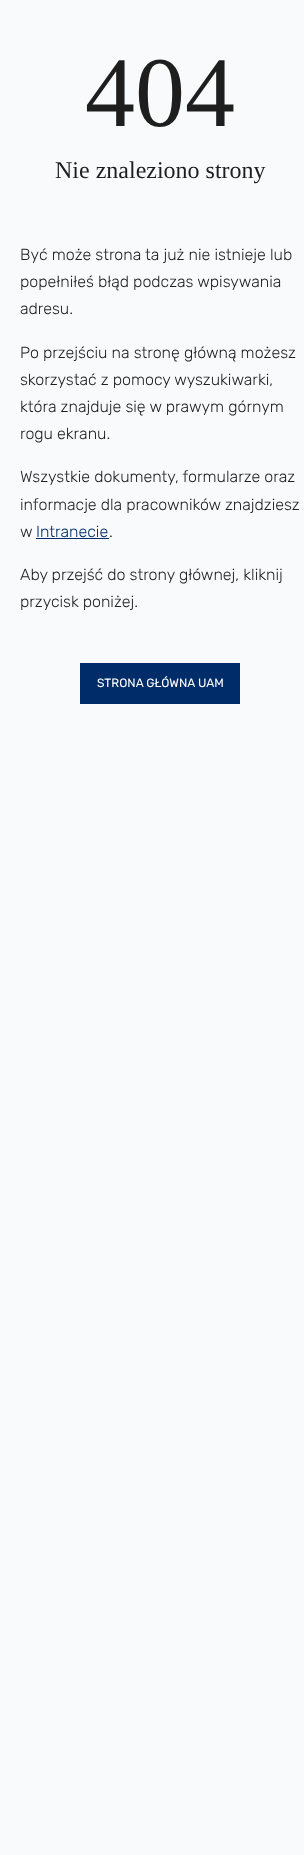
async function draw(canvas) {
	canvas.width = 304;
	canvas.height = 1855;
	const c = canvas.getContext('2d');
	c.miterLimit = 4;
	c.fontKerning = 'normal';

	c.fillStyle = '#f9fafb';
	c.fillRect(0, 0, 304, 1855);
	c.font = '100px Tinos';
	c.fillStyle = '#1e1e1e';
	c.fillText('404', 85, 126);
	c.font = '24px Tinos';
	c.fillText('Nie znaleziono strony', 55, 178);
	c.font = '300 16px Rubik';
	for (const [text, x, y] of [
		['Być może strona ta już nie istnieje lub', 20, 260],
		['popełniłeś błąd podczas wpisywania', 20, 287],
		['adresu.', 20, 314],
		['Po przejściu na stronę główną możesz', 20, 358],
		['skorzystać z pomocy wyszukiwarki,', 20, 385],
		['która znajduje się w prawym górnym', 20, 412],
		['rogu ekranu.', 20, 439],
		['Wszystkie dokumenty, formularze oraz', 20, 482],
		['informacje dla pracowników znajdziesz', 20, 510],
		['w', 20, 537],
	]) {
		c.fillText(text, x, y);
	}
	c.fillStyle = '#002d69';
	c.fillText('Intranecie', 36, 537);
	c.fillRect(36, 538, 73, 1);
	c.fillStyle = '#1e1e1e';
	for (const [text, x, y] of [
		['.', 109, 537],
		['Aby przejść do strony głównej, kliknij', 20, 580],
		['przycisk poniżej.', 20, 607],
	]) {
		c.fillText(text, x, y);
	}
	c.fillStyle = '#002d69';
	c.fillRect(80, 663, 160, 41);
	c.font = '12px Rubik';
	c.fillStyle = '#fff';
	c.fillText('STRONA GŁÓWNA UAM', 97, 687);
}

draw(document.querySelector('canvas'));
